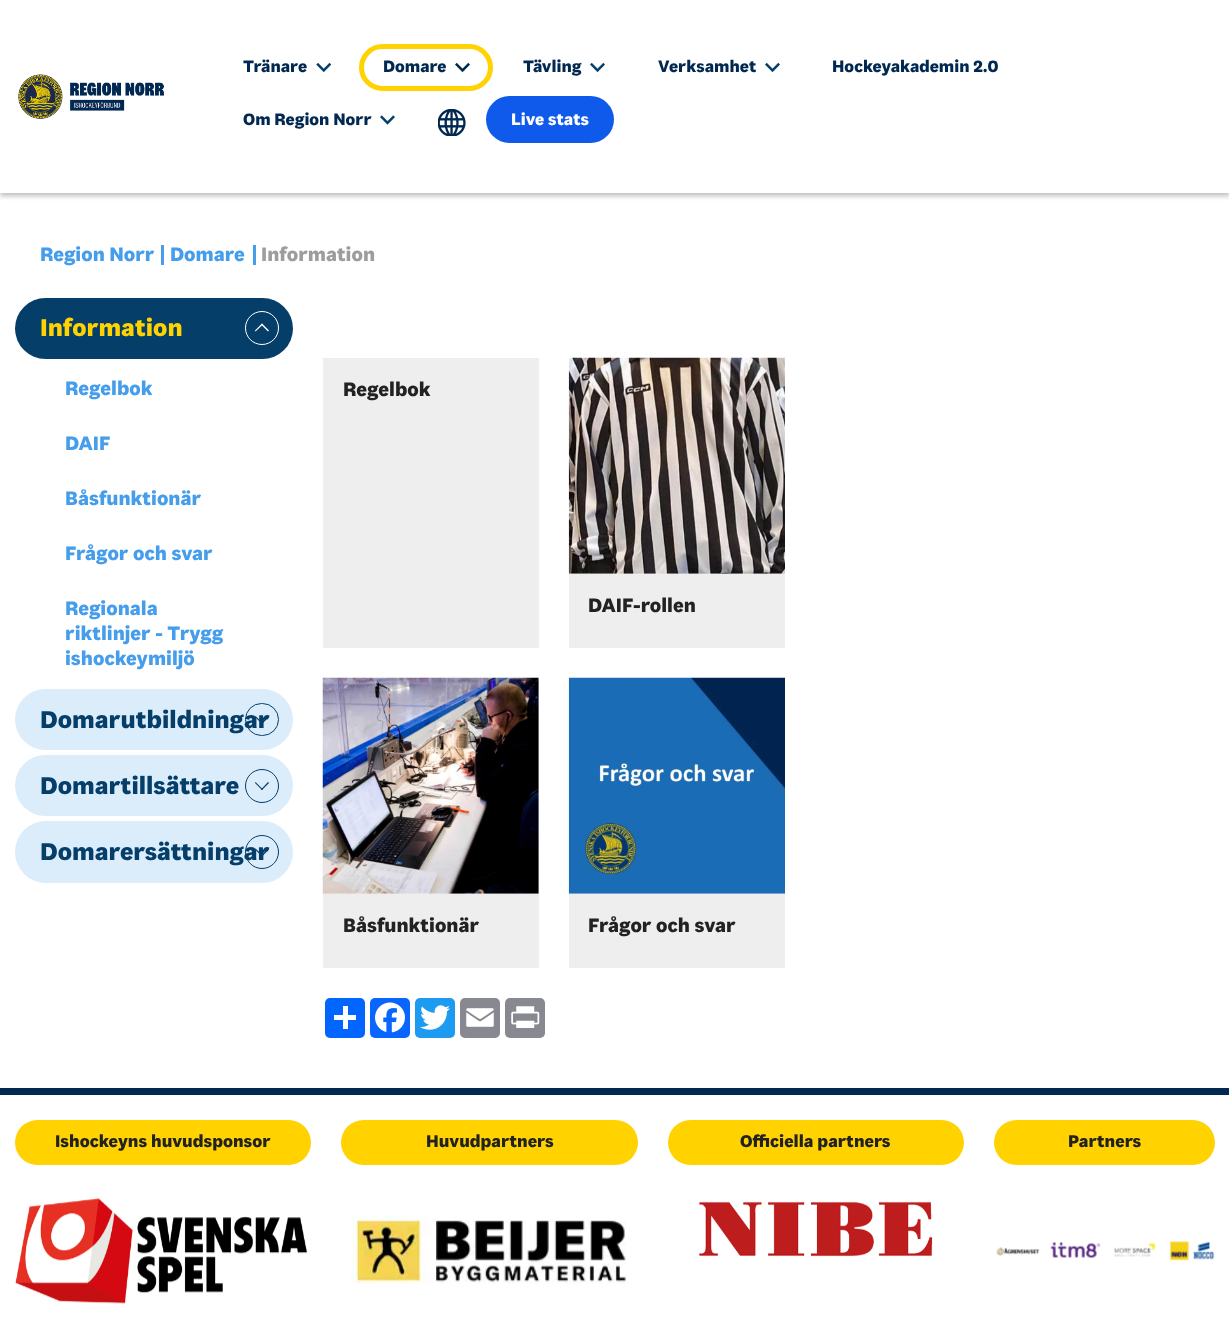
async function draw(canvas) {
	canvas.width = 1229;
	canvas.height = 1333;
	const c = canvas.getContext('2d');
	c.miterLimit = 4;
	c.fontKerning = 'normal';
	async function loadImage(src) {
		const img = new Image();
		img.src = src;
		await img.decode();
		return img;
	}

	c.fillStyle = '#fff';
	c.fillRect(0, 0, 1229, 1333);
	c.fillStyle = '#00000040';
	c.filter = 'blur(2.5px)';
	c.beginPath();
	c.rect(0, 4, 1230, 192);
	c.fill();
	c.filter = 'none';
	c.fillStyle = '#fff';
	c.fillRect(0, 0, 1229, 193);
	c.drawImage(await loadImage('img1.png'), 18, 74, 146, 45);
	c.font = 'bold 17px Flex';
	c.fillStyle = '#002850';
	c.fillText('Tränare', 243, 72);
	c.drawImage(await loadImage('img2.png'), 316, 62, 15, 11);
	c.beginPath();
	c.roundRect(361.5, 46.5, 129, 42, 21);
	c.strokeStyle = '#ffd200';
	c.lineWidth = 5;
	c.stroke();
	c.fillText('Domare', 383, 72);
	c.drawImage(await loadImage('img3.png'), 455, 62, 15, 11);
	c.fillText('Tävling', 523, 72);
	c.drawImage(await loadImage('img4.png'), 590, 62, 15, 11);
	c.fillText('Verksamhet', 658, 72);
	c.drawImage(await loadImage('img4.png'), 765, 62, 15, 11);
	c.fillText('Hockeyakademin 2.0', 832, 72);
	c.fillText('Om Region Norr', 243, 125);
	c.drawImage(await loadImage('img5.png'), 380, 115, 15, 10);
	c.drawImage(await loadImage('img6.png'), 438, 109, 28, 27);
	c.fillStyle = '#0f5aeb';
	c.beginPath();
	c.roundRect(486, 96, 128, 47, 23.5);
	c.fill();
	c.fillStyle = '#fff';
	c.fillText('Live stats', 511, 125);
	c.font = 'bold 20px Flex';
	c.fillStyle = '#459deb';
	c.fillText('Region Norr', 40, 261);
	c.fillRect(161, 245, 3, 20);
	c.fillText('Domare', 170, 261);
	c.fillRect(253, 245, 3, 20);
	c.fillStyle = '#9d9d9d';
	c.fillText('Information', 261, 261);
	c.fillStyle = '#053e69';
	c.beginPath();
	c.roundRect(15, 298, 278, 61, 30.5);
	c.fill();
	c.font = 'bold 25px Flex';
	c.fillStyle = '#ffd200';
	c.fillText('Information', 40, 336);
	c.beginPath();
	c.arc(262, 328, 16.5, 0, 2 * Math.PI);
	c.strokeStyle = '#fff';
	c.lineWidth = 1;
	c.stroke();
	c.fillStyle = '#fff';
	c.beginPath();
	c.moveTo(263, 324.5);
	c.lineTo(255.5, 331.5);
	c.lineTo(255, 330.5);
	c.lineTo(262, 323.5);
	c.closePath();
	c.fill();
	c.beginPath();
	c.moveTo(269, 330.5);
	c.lineTo(268, 331.5);
	c.lineTo(261, 324.5);
	c.lineTo(262, 323.5);
	c.closePath();
	c.fill();
	c.font = 'bold 20px Flex';
	c.fillStyle = '#459deb';
	for (const [text, x, y] of [
		['Regelbok', 65, 395],
		['DAIF', 65, 450],
		['Båsfunktionär', 65, 505],
		['Frågor och svar', 65, 560],
		['Regionala', 65, 615],
		['riktlinjer - Trygg', 65, 640],
		['ishockeymiljö', 65, 665],
	]) {
		c.fillText(text, x, y);
	}
	c.fillStyle = '#dbecfb';
	c.beginPath();
	c.roundRect(15, 689, 278, 61, 30.5);
	c.fill();
	c.beginPath();
	c.roundRect(245.5, 703.5, 33, 32, 16);
	c.strokeStyle = '#053e69';
	c.stroke();
	c.fillStyle = '#053e69';
	c.beginPath();
	c.moveTo(261, 723);
	c.lineTo(268, 716);
	c.lineTo(269, 717);
	c.lineTo(262, 724);
	c.closePath();
	c.fill();
	c.beginPath();
	c.moveTo(255, 717);
	c.lineTo(255.5, 716);
	c.lineTo(263, 723);
	c.lineTo(262, 724);
	c.closePath();
	c.fill();
	c.font = 'bold 25px Flex';
	c.fillText('Domarutbildningar', 40, 728);
	c.fillStyle = '#dbecfb';
	c.beginPath();
	c.roundRect(15, 755, 278, 61, 30.5);
	c.fill();
	c.fillStyle = '#053e69';
	c.fillText('Domartillsättare', 40, 794);
	c.beginPath();
	c.arc(262, 786, 16.5, 0, 2 * Math.PI);
	c.stroke();
	c.beginPath();
	c.moveTo(261, 789.5);
	c.lineTo(268, 782);
	c.lineTo(269, 783);
	c.lineTo(262, 790);
	c.closePath();
	c.fill();
	c.beginPath();
	c.moveTo(255, 783);
	c.lineTo(255.5, 782);
	c.lineTo(263, 789.5);
	c.lineTo(262, 790);
	c.closePath();
	c.fill();
	c.fillStyle = '#dbecfb';
	c.beginPath();
	c.roundRect(15, 821, 278, 62, 31);
	c.fill();
	c.beginPath();
	c.arc(262, 852, 16.5, 0, 2 * Math.PI);
	c.stroke();
	c.fillStyle = '#053e69';
	c.beginPath();
	c.moveTo(261, 855.5);
	c.lineTo(268, 848.5);
	c.lineTo(269, 849.5);
	c.lineTo(262, 856.5);
	c.closePath();
	c.fill();
	c.beginPath();
	c.moveTo(255, 849.5);
	c.lineTo(255.5, 848.5);
	c.lineTo(263, 855.5);
	c.lineTo(262, 856.5);
	c.closePath();
	c.fill();
	c.fillText('Domarersättningar', 40, 860);
	c.fillStyle = '#eee';
	c.fillRect(323, 358, 216, 290);
	c.font = 'bold 20px Flex';
	c.fillStyle = '#222';
	c.fillText('Regelbok', 343, 396);
	c.fillStyle = '#eee';
	c.fillRect(569, 573, 216, 75);
	c.drawImage(await loadImage('img7.png'), 568, 357, 217, 217);
	c.fillStyle = '#222';
	c.fillText('DAIF-rollen', 588, 612);
	c.fillStyle = '#eee';
	c.fillRect(323, 678, 216, 290);
	c.drawImage(await loadImage('img8.png'), 322, 677, 217, 217);
	c.fillStyle = '#222';
	c.fillText('Båsfunktionär', 343, 932);
	c.fillStyle = '#eee';
	c.fillRect(569, 893, 216, 75);
	c.drawImage(await loadImage('img9.png'), 568, 677, 217, 217);
	c.fillStyle = '#222';
	c.fillText('Frågor och svar', 588, 932);
	c.fillStyle = '#0166ff';
	c.beginPath();
	c.roundRect(325, 998, 40, 40, 5);
	c.fill();
	c.fillStyle = '#fff';
	c.fillRect(343, 1006, 5, 23);
	c.fillRect(334, 1015, 22, 5);
	c.fillStyle = '#0866ff';
	c.beginPath();
	c.roundRect(370, 998, 40, 40, 5);
	c.fill();
	c.drawImage(await loadImage('img10.png'), 375, 1002, 30, 31);
	c.fillStyle = '#1d9bf0';
	c.beginPath();
	c.roundRect(415, 998, 40, 40, 5);
	c.fill();
	c.drawImage(await loadImage('img11.png'), 420, 1005, 30, 25);
	c.fillStyle = '#888990';
	c.beginPath();
	c.roundRect(460, 998, 40, 40, 5);
	c.fill();
	c.drawImage(await loadImage('img12.png'), 466, 1008, 28, 19);
	c.beginPath();
	c.roundRect(505, 998, 40, 40, 5);
	c.fill();
	c.drawImage(await loadImage('img13.png'), 511, 1006, 29, 22);
	c.fillStyle = '#002850';
	c.fillRect(0, 1088, 1229, 7);
	c.fillStyle = '#ffd200';
	c.beginPath();
	c.roundRect(15, 1120, 296, 45, 22.5);
	c.fill();
	c.font = 'bold 17.5px Flex';
	c.fillStyle = '#222';
	c.fillText('Ishockeyns huvudsponsor', 55, 1147);
	c.drawImage(await loadImage('img14.png'), 15, 1198, 292, 106);
	c.fillStyle = '#ffd200';
	c.beginPath();
	c.roundRect(341, 1120, 297, 45, 22.5);
	c.fill();
	c.fillStyle = '#222';
	c.fillText('Huvudpartners', 426, 1147);
	c.drawImage(await loadImage('img15.png'), 351, 1216, 275, 69);
	c.fillStyle = '#ffd200';
	c.beginPath();
	c.roundRect(668, 1120, 296, 45, 22.5);
	c.fill();
	c.fillStyle = '#222';
	c.fillText('Officiella partners', 740, 1147);
	c.drawImage(await loadImage('img16.png'), 699, 1201, 234, 56);
	c.fillStyle = '#ffd200';
	c.beginPath();
	c.roundRect(994, 1120, 221, 45, 22.5);
	c.fill();
	c.fillStyle = '#222';
	c.fillText('Partners', 1068, 1147);
	c.drawImage(await loadImage('img17.png'), 996, 1247, 44, 9);
	c.drawImage(await loadImage('img18.png'), 1050, 1242, 51, 16);
	c.drawImage(await loadImage('img19.png'), 1114, 1243, 42, 14);
	c.drawImage(await loadImage('img20.png'), 1169, 1241, 20, 20);
	c.drawImage(await loadImage('img21.png'), 1193, 1241, 22, 19);
}

draw(document.querySelector('canvas'));
